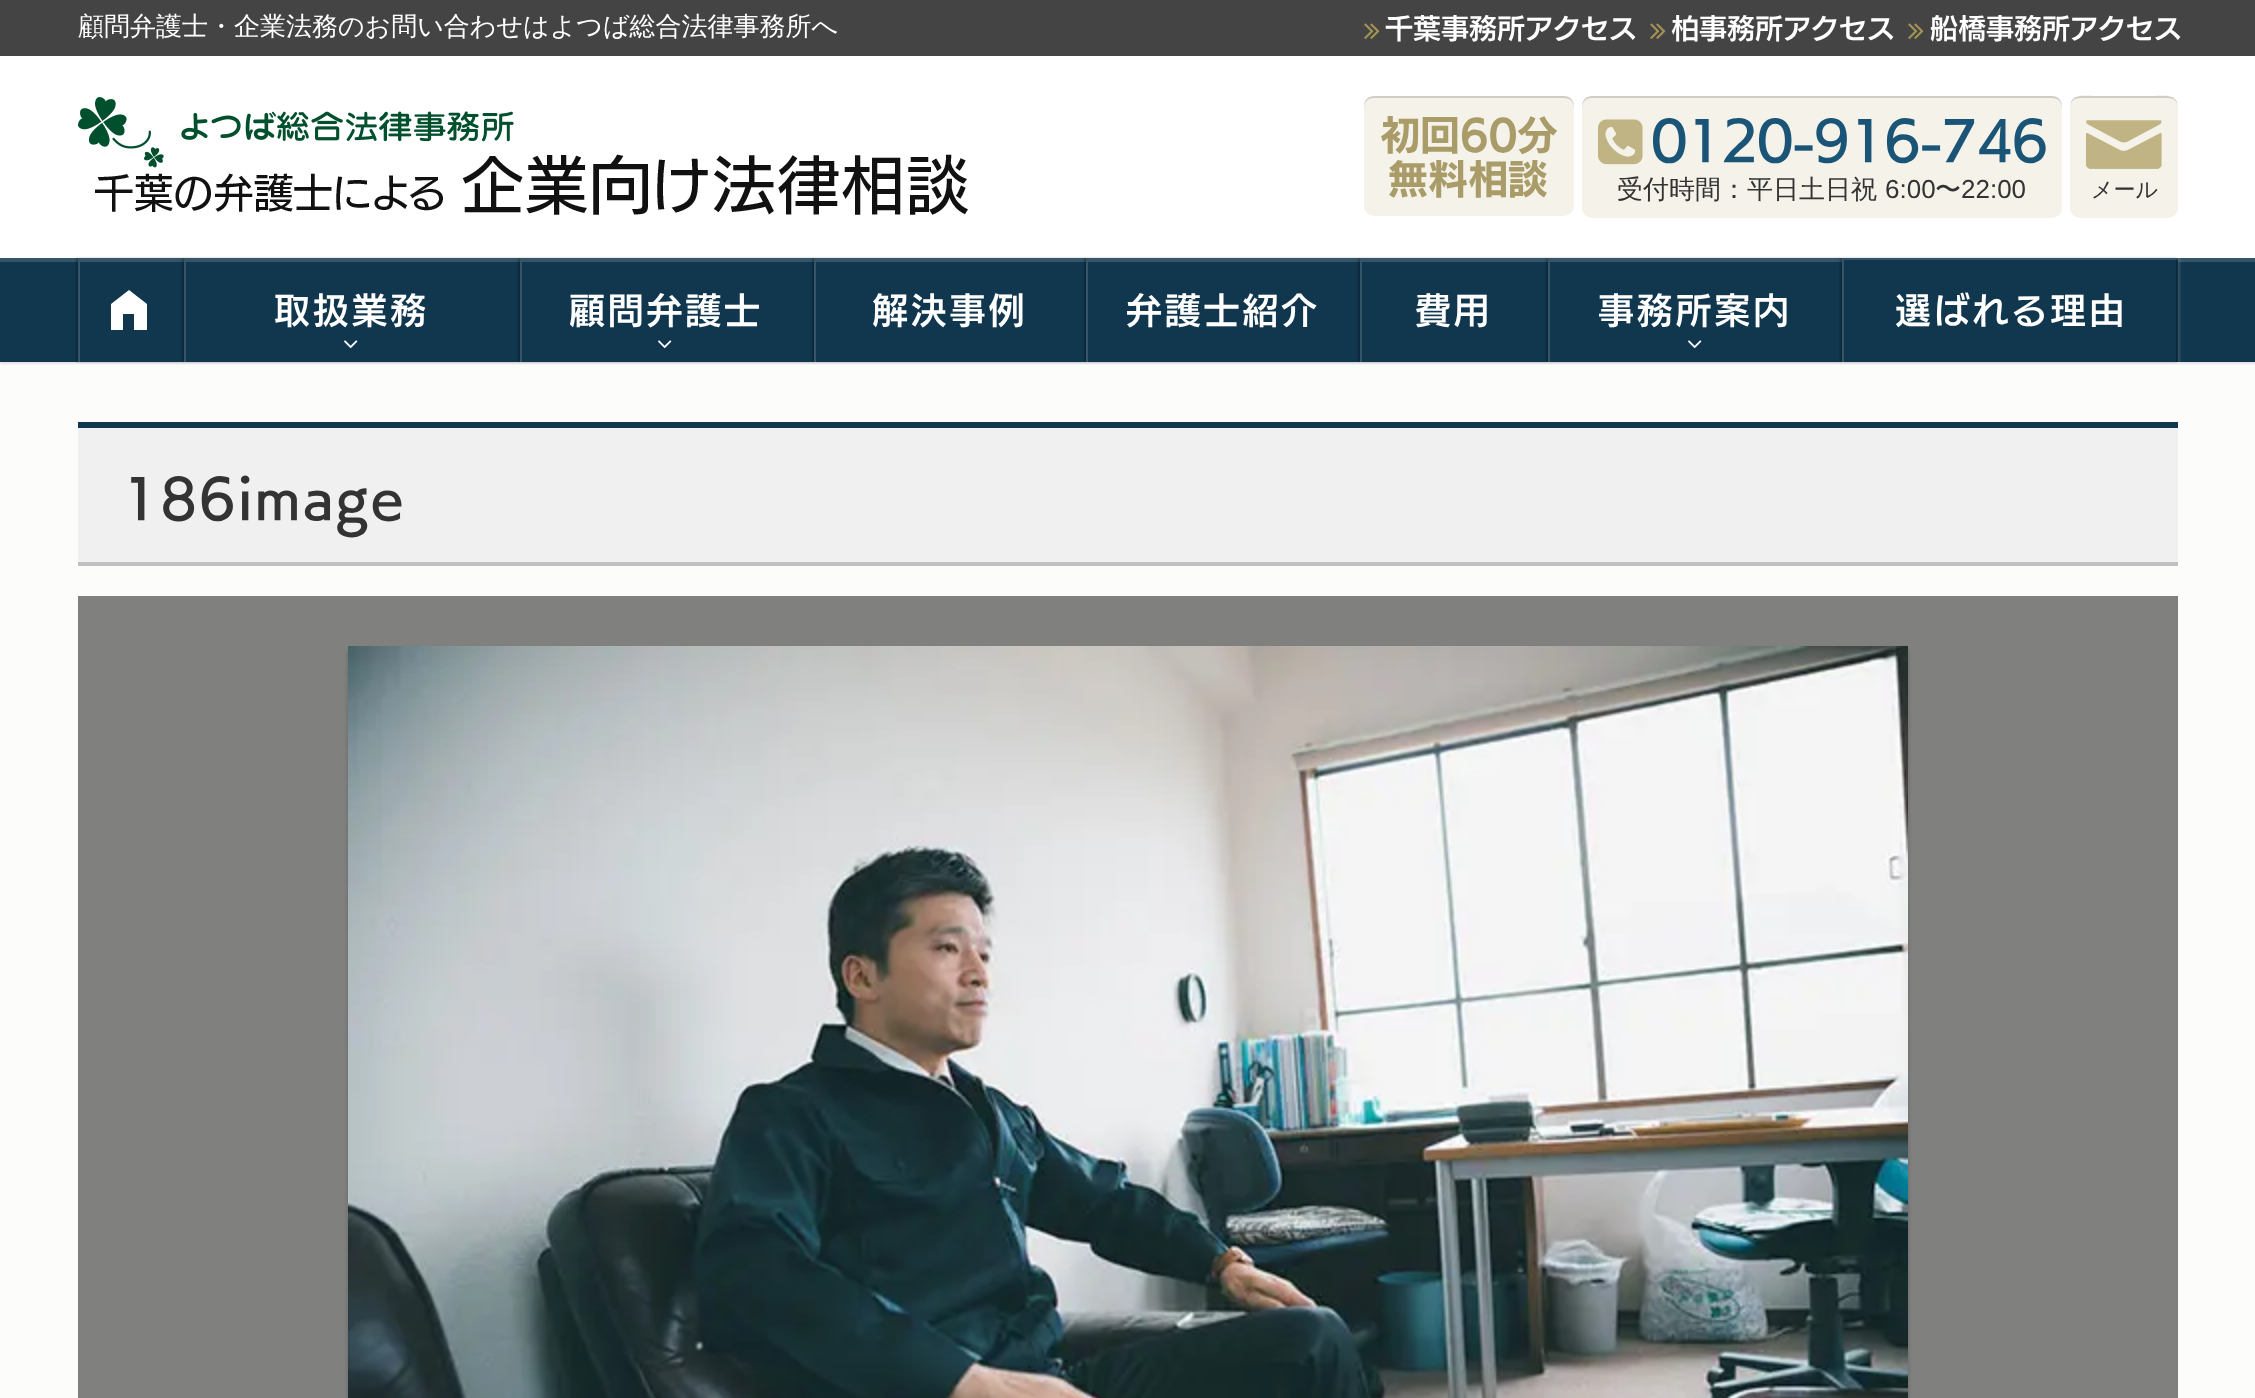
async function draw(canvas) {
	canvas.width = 2255;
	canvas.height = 1398;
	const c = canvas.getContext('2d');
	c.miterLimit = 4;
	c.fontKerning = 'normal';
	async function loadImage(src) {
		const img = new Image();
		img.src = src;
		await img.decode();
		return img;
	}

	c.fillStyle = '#fff';
	c.fillRect(0, 0, 2255, 1398);
	c.fillStyle = '#fcfcfa';
	c.fillRect(0, 362, 2255, 1036);
	c.save();
	c.beginPath();
	c.rect(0, 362, 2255, 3);
	c.clip();
	c.fillStyle = '#0000001a';
	c.filter = 'blur(1px)';
	c.beginPath();
	c.rect(0, 2, 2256, 362);
	c.fill();
	c.filter = 'none';
	c.restore();
	c.fillStyle = '#444';
	c.fillRect(0, 0, 2255, 56);
	c.font = '500 26px WenQuanYi Zen Hei';
	c.fillStyle = '#fff';
	c.fillText('顧問弁護士・企業法務のお問い合わせはよつば総合法律事務所へ', 78, 35);
	c.drawImage(await loadImage('img1.png'), 1364, 23, 16, 16);
	c.font = '600 28px "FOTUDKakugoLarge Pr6"';
	c.fillText('千葉事務所アクセス', 1385, 39);
	c.drawImage(await loadImage('img1.png'), 1650, 23, 16, 16);
	c.fillText('柏事務所アクセス', 1671, 39);
	c.drawImage(await loadImage('img1.png'), 1908, 23, 16, 16);
	c.fillText('船橋事務所アクセス', 1930, 39);
	c.drawImage(await loadImage('img2.png'), 78, 97, 890, 118);
	c.fillStyle = '#f4f2e9';
	c.beginPath();
	c.roundRect(1364, 96, 210, 120, 10);
	c.fill();
	c.fillStyle = '#00000026';
	c.beginPath();
	c.moveTo(1374, 98);
	c.lineTo(1564, 98);
	c.bezierCurveTo(1570, 98, 1574, 102, 1574, 108);
	c.lineTo(1574, 106);
	c.bezierCurveTo(1574, 100, 1570, 96, 1564, 96);
	c.lineTo(1374, 96);
	c.bezierCurveTo(1368, 96, 1364, 100, 1364, 106);
	c.lineTo(1364, 108);
	c.bezierCurveTo(1364, 102, 1368, 98, 1374, 98);
	c.closePath();
	c.fill();
	c.font = 'bold 40px "FOTUDKakugoLarge Pr6"';
	c.fillStyle = '#a99c68';
	c.fillText('初回60分', 1380, 150);
	c.fillText('無料相談', 1388, 194);
	c.fillStyle = '#f4f2e9';
	c.beginPath();
	c.roundRect(1582, 96, 480, 122, 10);
	c.fill();
	c.fillStyle = '#00000026';
	c.beginPath();
	c.moveTo(1592, 98);
	c.lineTo(2052, 98);
	c.bezierCurveTo(2058, 98, 2062, 102, 2062, 108);
	c.lineTo(2062, 106);
	c.bezierCurveTo(2062, 100, 2058, 96, 2052, 96);
	c.lineTo(1592, 96);
	c.bezierCurveTo(1586, 96, 1582, 100, 1582, 106);
	c.lineTo(1582, 108);
	c.bezierCurveTo(1582, 102, 1586, 98, 1592, 98);
	c.closePath();
	c.fill();
	c.drawImage(await loadImage('img3.png'), 1598, 119, 45, 46);
	c.letterSpacing = '-1.25px';
	c.font = '600 52px "FOTUDKakugoLarge Pr6"';
	c.fillStyle = '#1a5477';
	c.fillText('0120-916-746', 1651, 160);
	c.letterSpacing = '0px';
	c.font = '500 26px WenQuanYi Zen Hei';
	c.fillStyle = '#333';
	c.fillText('受付時間：平日土日祝', 1617, 198);
	c.font = '26px Liberation Sans';
	c.fillText('6:00', 1885, 198);
	c.font = '500 26px WenQuanYi Zen Hei';
	c.fillText('〜', 1935, 198);
	c.font = '26px Liberation Sans';
	c.fillText('22:00', 1961, 198);
	c.fillStyle = '#f4f2e9';
	c.beginPath();
	c.roundRect(2070, 96, 108, 122, 10);
	c.fill();
	c.fillStyle = '#00000026';
	c.beginPath();
	c.moveTo(2080, 98);
	c.lineTo(2168, 98);
	c.bezierCurveTo(2174, 98, 2178, 102, 2178, 108);
	c.bezierCurveTo(2178, 93, 2165, 96, 2153, 96);
	c.lineTo(2095, 96);
	c.bezierCurveTo(2083, 96, 2070, 93, 2070, 108);
	c.bezierCurveTo(2070, 102, 2074, 98, 2080, 98);
	c.closePath();
	c.fill();
	c.drawImage(await loadImage('img4.png'), 2086, 120, 76, 49);
	c.font = '500 22px WenQuanYi Zen Hei';
	c.fillStyle = '#333';
	c.fillText('メール', 2091, 197);
	c.fillStyle = '#11374e';
	c.fillRect(0, 262, 2255, 100);
	c.fillStyle = '#355569';
	c.fillRect(0, 258, 2255, 4);
	c.fillStyle = '#00000040';
	c.filter = 'blur(1px)';
	c.beginPath();
	c.rect(76, 258, 106, 104);
	c.fill();
	c.filter = 'none';
	c.fillStyle = '#11374e';
	c.fillRect(80, 262, 103, 100);
	c.save();
	c.beginPath();
	c.rect(78, 258, 106, 104);
	c.clip();
	c.fillStyle = '#355569';
	c.beginPath();
	c.moveTo(-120, 60);
	c.lineTo(382, 60);
	c.lineTo(382, 560);
	c.lineTo(-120, 560);
	c.closePath();
	c.moveTo(80, 262);
	c.lineTo(186, 262);
	c.lineTo(186, 366);
	c.lineTo(80, 366);
	c.closePath();
	c.fill('evenodd');
	c.restore();
	c.fillStyle = '#fff';
	c.beginPath();
	c.moveTo(111, 330);
	c.lineTo(111, 304);
	c.lineTo(129, 290);
	c.lineTo(147, 304);
	c.lineTo(147, 330);
	c.lineTo(134, 330);
	c.lineTo(134, 314);
	c.lineTo(123, 314);
	c.lineTo(123, 330);
	c.closePath();
	c.fill();
	c.fillStyle = '#00000040';
	c.filter = 'blur(1px)';
	c.beginPath();
	c.rect(182, 258, 336, 104);
	c.fill();
	c.filter = 'none';
	c.fillStyle = '#11374e';
	c.fillRect(186, 262, 333, 100);
	c.save();
	c.beginPath();
	c.rect(184, 258, 336, 104);
	c.clip();
	c.fillStyle = '#355569';
	c.beginPath();
	c.moveTo(-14, 60);
	c.lineTo(718, 60);
	c.lineTo(718, 560);
	c.lineTo(-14, 560);
	c.closePath();
	c.moveTo(186, 262);
	c.lineTo(522, 262);
	c.lineTo(522, 366);
	c.lineTo(186, 366);
	c.closePath();
	c.fill('evenodd');
	c.restore();
	c.letterSpacing = '2.75px';
	c.font = '600 36px "FOTUDKakugoLarge Pr6"';
	c.fillStyle = '#fff';
	c.fillText('取扱業務', 274, 324);
	c.drawImage(await loadImage('img5.png'), 344, 340, 14, 9);
	c.fillStyle = '#00000040';
	c.filter = 'blur(1px)';
	c.beginPath();
	c.rect(518, 258, 294, 104);
	c.fill();
	c.filter = 'none';
	c.fillStyle = '#11374e';
	c.fillRect(522, 262, 291, 100);
	c.save();
	c.beginPath();
	c.rect(520, 258, 294, 104);
	c.clip();
	c.fillStyle = '#355569';
	c.beginPath();
	c.moveTo(322, 60);
	c.lineTo(1012, 60);
	c.lineTo(1012, 560);
	c.lineTo(322, 560);
	c.closePath();
	c.moveTo(522, 262);
	c.lineTo(816, 262);
	c.lineTo(816, 366);
	c.lineTo(522, 366);
	c.closePath();
	c.fill('evenodd');
	c.restore();
	c.fillStyle = '#fff';
	c.fillText('顧問弁護士', 569, 324);
	c.drawImage(await loadImage('img5.png'), 658, 340, 14, 9);
	c.fillStyle = '#00000040';
	c.filter = 'blur(1px)';
	c.beginPath();
	c.rect(812, 258, 272, 104);
	c.fill();
	c.filter = 'none';
	c.fillStyle = '#11374e';
	c.fillRect(816, 262, 269, 100);
	c.save();
	c.beginPath();
	c.rect(814, 258, 272, 104);
	c.clip();
	c.fillStyle = '#355569';
	c.beginPath();
	c.moveTo(616, 60);
	c.lineTo(1284, 60);
	c.lineTo(1284, 560);
	c.lineTo(616, 560);
	c.closePath();
	c.moveTo(816, 262);
	c.lineTo(1088, 262);
	c.lineTo(1088, 366);
	c.lineTo(816, 366);
	c.closePath();
	c.fill('evenodd');
	c.restore();
	c.fillStyle = '#fff';
	c.fillText('解決事例', 872, 324);
	c.fillStyle = '#00000040';
	c.filter = 'blur(1px)';
	c.beginPath();
	c.rect(1084, 258, 274, 104);
	c.fill();
	c.filter = 'none';
	c.fillStyle = '#11374e';
	c.fillRect(1088, 262, 271, 100);
	c.save();
	c.beginPath();
	c.rect(1086, 258, 274, 104);
	c.clip();
	c.fillStyle = '#355569';
	c.beginPath();
	c.moveTo(888, 60);
	c.lineTo(1558, 60);
	c.lineTo(1558, 560);
	c.lineTo(888, 560);
	c.closePath();
	c.moveTo(1088, 262);
	c.lineTo(1362, 262);
	c.lineTo(1362, 366);
	c.lineTo(1088, 366);
	c.closePath();
	c.fill('evenodd');
	c.restore();
	c.fillStyle = '#fff';
	c.fillText('弁護士紹介', 1126, 324);
	c.fillStyle = '#00000040';
	c.filter = 'blur(1px)';
	c.beginPath();
	c.rect(1358, 258, 188, 104);
	c.fill();
	c.filter = 'none';
	c.fillStyle = '#11374e';
	c.fillRect(1362, 262, 185, 100);
	c.save();
	c.beginPath();
	c.rect(1360, 258, 188, 104);
	c.clip();
	c.fillStyle = '#355569';
	c.beginPath();
	c.moveTo(1162, 60);
	c.lineTo(1746, 60);
	c.lineTo(1746, 560);
	c.lineTo(1162, 560);
	c.closePath();
	c.moveTo(1362, 262);
	c.lineTo(1550, 262);
	c.lineTo(1550, 366);
	c.lineTo(1362, 366);
	c.closePath();
	c.fill('evenodd');
	c.restore();
	c.fillStyle = '#fff';
	c.fillText('費用', 1415, 324);
	c.fillStyle = '#00000040';
	c.filter = 'blur(1px)';
	c.beginPath();
	c.rect(1546, 258, 294, 104);
	c.fill();
	c.filter = 'none';
	c.fillStyle = '#11374e';
	c.fillRect(1550, 262, 291, 100);
	c.save();
	c.beginPath();
	c.rect(1548, 258, 294, 104);
	c.clip();
	c.fillStyle = '#355569';
	c.beginPath();
	c.moveTo(1350, 60);
	c.lineTo(2040, 60);
	c.lineTo(2040, 560);
	c.lineTo(1350, 560);
	c.closePath();
	c.moveTo(1550, 262);
	c.lineTo(1844, 262);
	c.lineTo(1844, 366);
	c.lineTo(1550, 366);
	c.closePath();
	c.fill('evenodd');
	c.restore();
	c.fillStyle = '#fff';
	c.fillText('事務所案内', 1598, 324);
	c.drawImage(await loadImage('img5.png'), 1688, 340, 14, 9);
	c.fillStyle = '#ffffff26';
	c.filter = 'blur(1px)';
	c.beginPath();
	c.rect(1844, 258, 336, 104);
	c.fill();
	c.filter = 'none';
	c.fillStyle = '#00000040';
	c.filter = 'blur(1px)';
	c.beginPath();
	c.rect(1840, 258, 336, 104);
	c.fill();
	c.filter = 'none';
	c.fillStyle = '#11374e';
	c.fillRect(1842, 258, 334, 104);
	c.fillStyle = '#0d293b';
	c.fillRect(2176, 258, 2, 104);
	c.save();
	c.beginPath();
	c.rect(1842, 258, 336, 104);
	c.clip();
	c.fillStyle = '#ffffff26';
	c.beginPath();
	c.moveTo(1644, 60);
	c.lineTo(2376, 60);
	c.lineTo(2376, 560);
	c.lineTo(1644, 560);
	c.closePath();
	c.moveTo(1844, 260);
	c.lineTo(2180, 260);
	c.lineTo(2180, 364);
	c.lineTo(1844, 364);
	c.closePath();
	c.fill('evenodd');
	c.restore();
	c.fillStyle = '#fff';
	c.fillText('選ばれる理由', 1895, 324);
	for (const [x, y, w, h, color] of [
		[78, 428, 2100, 134, '#f0f0f0'],
		[78, 422, 2100, 6, '#11374e'],
		[78, 562, 2100, 4, '#c0c0c0'],
	]) {
		c.fillStyle = color;
		c.fillRect(x, y, w, h);
	}
	c.letterSpacing = '2px';
	c.font = '600 52px "FOTUDKakugoLarge Pr6"';
	c.fillStyle = '#333';
	c.fillText('186image', 122, 518);
	c.fillStyle = '#80807f';
	c.fillRect(78, 596, 2100, 802);
	c.fillStyle = '#00000033';
	c.filter = 'blur(2px)';
	c.beginPath();
	c.rect(348, 650, 1560, 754);
	c.fill();
	c.filter = 'none';
	c.drawImage(await loadImage('img6.png'), 348, 646, 1560, 752);
}

draw(document.querySelector('canvas'));
